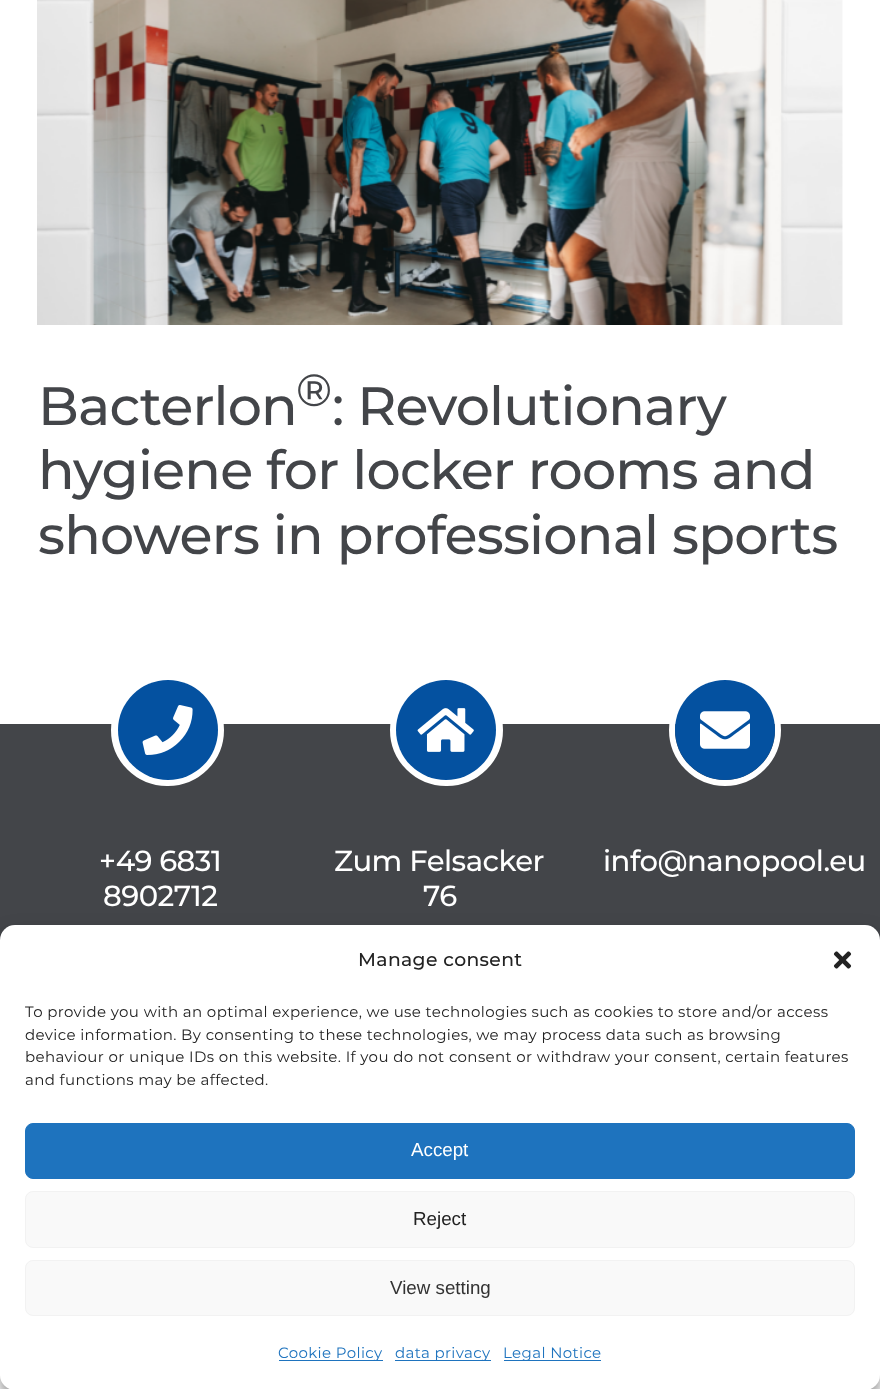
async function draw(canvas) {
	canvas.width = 880;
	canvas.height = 1389;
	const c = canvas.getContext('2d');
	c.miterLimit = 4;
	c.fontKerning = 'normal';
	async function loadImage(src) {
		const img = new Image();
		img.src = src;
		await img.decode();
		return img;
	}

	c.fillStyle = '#fff';
	c.fillRect(0, 0, 880, 1389);
	c.drawImage(await loadImage('img1.png'), 37, 0, 806, 325);
	c.letterSpacing = '-0.8px';
	c.font = '500 53.9px Montserrat';
	c.fillStyle = '#434549';
	c.fillText('Bacterlon', 38, 425);
	c.font = '500 45px Montserrat';
	c.fillText('®', 296, 406);
	c.font = '500 53.9px Montserrat';
	for (const [text, x, y] of [
		[': Revolutionary', 332, 425],
		['hygiene for locker rooms and', 38, 489],
		['showers in professional sports', 38, 554],
	]) {
		c.fillText(text, x, y);
	}
	c.fillRect(0, 724, 880, 216);
	c.fillStyle = '#fff';
	c.beginPath();
	c.roundRect(114, 677, 107, 106, 53);
	c.fill();
	c.strokeStyle = '#fff';
	c.lineWidth = 6;
	c.stroke();
	c.fillStyle = '#0451a0';
	c.beginPath();
	c.arc(168, 730, 50, 0, 2 * Math.PI);
	c.fill();
	c.drawImage(await loadImage('img2.png'), 142, 705, 51, 50);
	c.letterSpacing = '-0.5px';
	c.font = '500 29.1px Montserrat';
	c.fillStyle = '#fff';
	c.fillText('+49 6831', 99, 871);
	c.fillText('8902712', 103, 906);
	c.beginPath();
	c.roundRect(393, 677, 107, 106, 53);
	c.fill();
	c.stroke();
	c.fillStyle = '#0451a0';
	c.beginPath();
	c.arc(446, 730, 50, 0, 2 * Math.PI);
	c.fill();
	c.drawImage(await loadImage('img3.png'), 417, 708, 57, 44);
	c.fillStyle = '#fff';
	c.fillText('Zum Felsacker', 334, 871);
	c.fillText('76', 423, 906);
	c.beginPath();
	c.arc(725, 730, 53, 0, 2 * Math.PI);
	c.stroke();
	c.fillStyle = '#0451a0';
	c.beginPath();
	c.arc(725, 730, 50, 0, 2 * Math.PI);
	c.fill();
	c.drawImage(await loadImage('img4.png'), 700, 711, 50, 38);
	c.fillStyle = '#fff';
	c.fillText('info@nanopool.eu', 603, 871);
	c.fillStyle = '#0000003b';
	c.filter = 'blur(4px)';
	c.beginPath();
	c.roundRect(0, 933, 880, 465, 15);
	c.fill();
	c.filter = 'none';
	c.fillStyle = '#00000030';
	c.filter = 'blur(12.5px)';
	c.beginPath();
	c.roundRect(0, 938, 880, 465, 15);
	c.fill();
	c.filter = 'none';
	c.fillStyle = '#fff';
	c.beginPath();
	c.roundRect(0, 925, 880, 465, 15);
	c.fill();
	c.letterSpacing = '0.38px';
	c.font = '500 18.75px Montserrat';
	c.fillStyle = '#222';
	c.fillText('Manage consent', 358, 966);
	c.drawImage(await loadImage('img5.png'), 833, 951, 19, 18);
	c.font = '15px Montserrat';
	for (const [text, x, y] of [
		['To provide you with an optimal experience, we use technologies such as cookies to store and/or access', 25, 1017],
		['device information. By consenting to these technologies, we may process data such as browsing', 25, 1040],
		['behaviour or unique IDs on this website. If you do not consent or withdraw your consent, certain features', 25, 1062],
		['and functions may be affected.', 25, 1085],
	]) {
		c.fillText(text, x, y);
	}
	c.fillStyle = '#1e73be';
	c.beginPath();
	c.roundRect(25.5, 1123.5, 829, 55, 7.5);
	c.fill();
	c.strokeStyle = '#1e73be';
	c.lineWidth = 1;
	c.stroke();
	c.letterSpacing = '0px';
	c.font = '18.75px Liberation Sans';
	c.fillStyle = '#fff';
	c.fillText('Accept', 411, 1156);
	c.fillStyle = '#f9f9f9';
	c.beginPath();
	c.roundRect(25.5, 1191.5, 829, 56, 7.5);
	c.fill();
	c.strokeStyle = '#f2f2f2';
	c.stroke();
	c.fillStyle = '#222';
	c.fillText('Reject', 413, 1225);
	c.fillStyle = '#f9f9f9';
	c.beginPath();
	c.roundRect(25.5, 1260.5, 829, 55, 7.5);
	c.fill();
	c.stroke();
	c.fillStyle = '#333';
	c.fillText('View setting', 390, 1294);
	c.fillStyle = '#1e73be';
	c.fillRect(279, 1360, 104, 1);
	c.letterSpacing = '0.38px';
	c.font = '15px Montserrat';
	c.fillText('Cookie Policy', 278, 1358);
	c.fillRect(395, 1360, 96, 1);
	c.fillText('data privacy', 395, 1358);
	c.fillRect(504, 1360, 97, 1);
	c.fillText('Legal Notice', 503, 1358);
}

draw(document.querySelector('canvas'));
